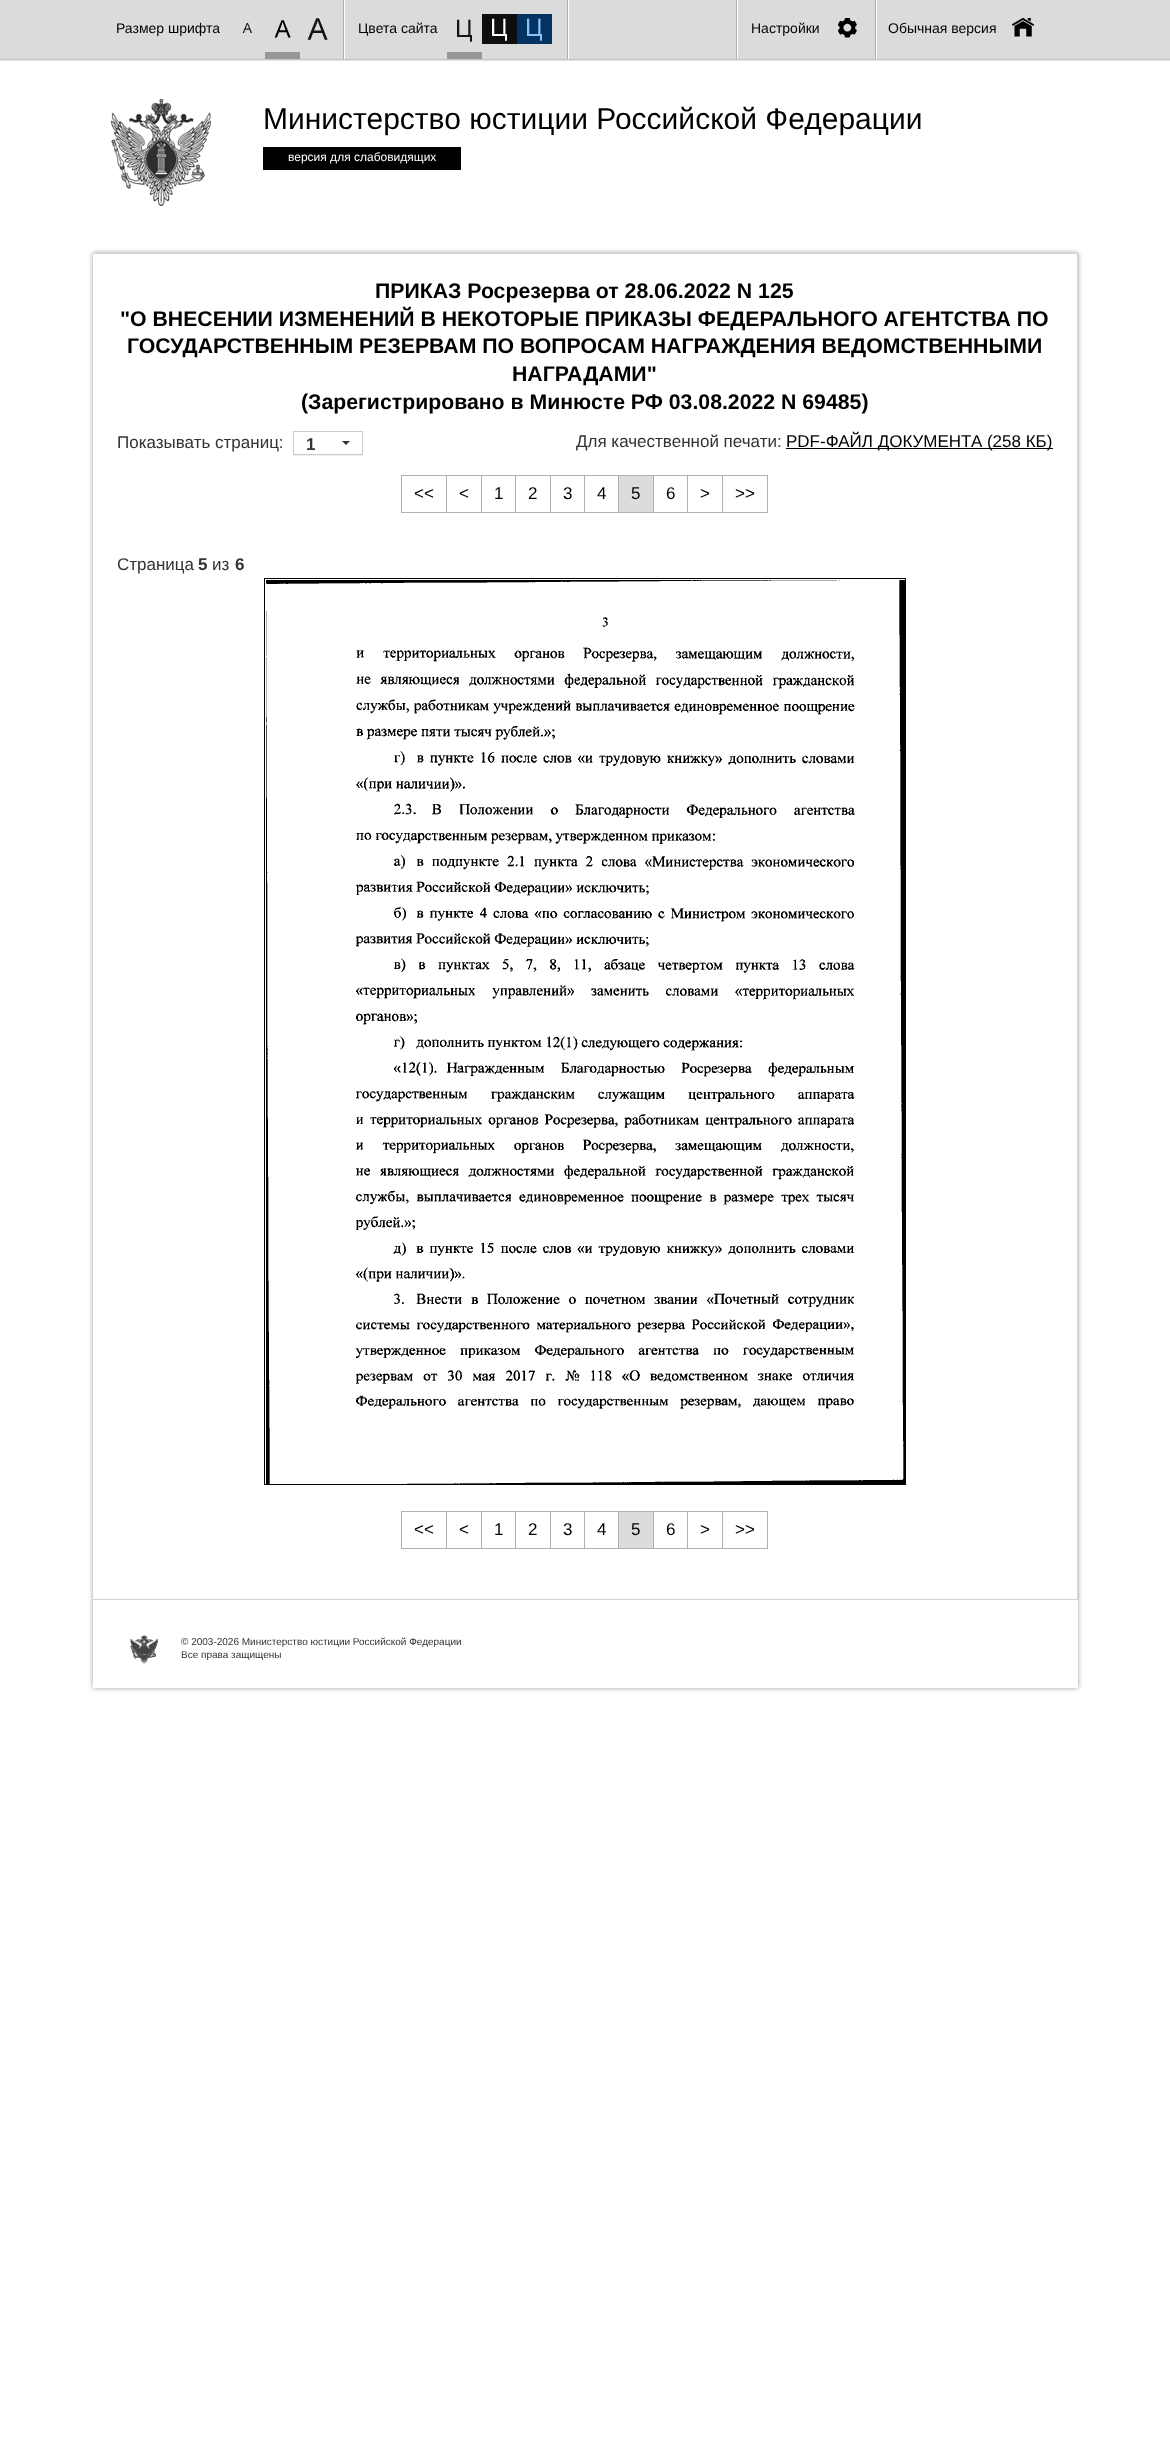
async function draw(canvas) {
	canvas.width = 1170;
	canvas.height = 2448;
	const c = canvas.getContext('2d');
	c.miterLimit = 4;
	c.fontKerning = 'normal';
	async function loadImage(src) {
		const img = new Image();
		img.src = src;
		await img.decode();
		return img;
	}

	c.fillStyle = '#fff';
	c.fillRect(0, 0, 1170, 2448);
	c.drawImage(await loadImage('img1.png'), 0, 0, 1170, 62);
	c.drawImage(await loadImage('img2.png'), 343, 0, 2, 59);
	c.font = '14px Liberation Sans';
	c.fillStyle = '#000';
	c.fillText('Размер шрифта', 116, 33);
	c.drawImage(await loadImage('img3.png'), 242, 23, 10, 10);
	c.drawImage(await loadImage('img4.png'), 265, 20, 35, 39);
	c.drawImage(await loadImage('img5.png'), 307, 18, 21, 22);
	c.drawImage(await loadImage('img2.png'), 567, 0, 2, 59);
	c.fillText('Цвета сайта', 358, 33);
	c.drawImage(await loadImage('img6.png'), 447, 19, 35, 40);
	c.drawImage(await loadImage('img7.png'), 482, 14, 35, 30);
	c.drawImage(await loadImage('img8.png'), 517, 14, 35, 30);
	c.drawImage(await loadImage('img2.png'), 736, 0, 2, 59);
	c.fillText('Настройки', 751, 33);
	c.drawImage(await loadImage('img9.png'), 838, 18, 19, 20);
	c.drawImage(await loadImage('img2.png'), 875, 0, 2, 59);
	c.fillText('Обычная версия', 888, 33);
	c.drawImage(await loadImage('img10.png'), 1012, 18, 22, 19);
	c.drawImage(await loadImage('img11.png'), 111, 99, 100, 107);
	c.font = '30px Liberation Sans';
	c.fillText('Министерство юстиции Российской Федерации', 263, 129);
	c.fillRect(263, 147, 198, 23);
	c.font = '12px Liberation Sans';
	c.fillStyle = '#fff';
	c.fillText('версия для слабовидящих', 288, 161);
	c.save();
	c.beginPath();
	c.moveTo(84, 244);
	c.lineTo(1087, 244);
	c.lineTo(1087, 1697);
	c.lineTo(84, 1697);
	c.closePath();
	c.moveTo(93, 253);
	c.lineTo(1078, 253);
	c.lineTo(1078, 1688);
	c.lineTo(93, 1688);
	c.closePath();
	c.clip('evenodd');
	c.fillStyle = '#999';
	c.filter = 'blur(2.5px)';
	c.beginPath();
	c.rect(93, 253, 985, 1435);
	c.fill();
	c.filter = 'none';
	c.restore();
	for (const [x, y, w, h, color] of [
		[93, 253, 985, 1, '#d3d3d3'],
		[1077, 253, 1, 1347, '#d3d3d3'],
		[93, 1599, 985, 1, '#d3d3d3'],
	]) {
		c.fillStyle = color;
		c.fillRect(x, y, w, h);
	}
	c.font = 'bold 21.25px Liberation Sans';
	c.fillStyle = '#000';
	for (const [text, x, y] of [
		['ПРИКАЗ Росрезерва от 28.06.2022 N 125', 375, 298],
		['"О ВНЕСЕНИИ ИЗМЕНЕНИЙ В НЕКОТОРЫЕ ПРИКАЗЫ ФЕДЕРАЛЬНОГО АГЕНТСТВА ПО', 120, 326],
		['ГОСУДАРСТВЕННЫМ РЕЗЕРВАМ ПО ВОПРОСАМ НАГРАЖДЕНИЯ ВЕДОМСТВЕННЫМИ', 127, 353],
		['НАГРАДАМИ"', 512, 381],
		['(Зарегистрировано в Минюсте РФ 03.08.2022 N 69485)', 301, 409],
	]) {
		c.fillText(text, x, y);
	}
	c.font = '17px Liberation Sans';
	c.fillStyle = '#333';
	c.fillText('Показывать страниц:', 117, 448);
	c.save();
	c.beginPath();
	c.rect(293, 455, 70, 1);
	c.clip();
	c.fillStyle = '#00000012';
	c.filter = 'blur(0.5px)';
	c.beginPath();
	c.rect(293, 432, 70, 24);
	c.fill();
	c.filter = 'none';
	c.restore();
	c.strokeStyle = '#ccc';
	c.strokeRect(293.5, 431.5, 69, 23);
	c.font = 'bold 17px Liberation Sans';
	c.fillText('1', 306, 450);
	c.beginPath();
	c.moveTo(342, 441);
	c.lineTo(350, 441);
	c.lineTo(346, 445);
	c.closePath();
	c.fill();
	c.font = '17px Liberation Sans';
	c.fillText('Для качественной печати:', 576, 447);
	c.fillStyle = '#000';
	c.fillRect(786, 448, 267, 1);
	c.fillText('PDF-ФАЙЛ ДОКУМЕНТА (258 КБ)', 786, 447);
	c.strokeStyle = '#b0b0b0';
	c.strokeRect(401.5, 475.5, 45, 37);
	c.fillText('<<', 414, 499);
	c.strokeRect(446.5, 475.5, 35, 37);
	c.fillText('<', 459, 499);
	c.strokeRect(481.5, 475.5, 34, 37);
	c.fillText('1', 494, 499);
	c.strokeRect(515.5, 475.5, 35, 37);
	c.fillText('2', 528, 499);
	c.strokeRect(550.5, 475.5, 34, 37);
	c.fillText('3', 563, 499);
	c.strokeRect(584.5, 475.5, 34, 37);
	c.fillText('4', 597, 499);
	c.strokeRect(653.5, 475.5, 34, 37);
	c.fillStyle = '#dcdcdc';
	c.beginPath();
	c.rect(618.5, 475.5, 35, 37);
	c.fill();
	c.stroke();
	c.fillStyle = '#000';
	c.fillText('5', 631, 499);
	c.fillText('6', 666, 499);
	c.strokeRect(687.5, 475.5, 35, 37);
	c.fillText('>', 700, 499);
	c.strokeRect(722.5, 475.5, 45, 37);
	c.fillText('>>', 735, 499);
	c.fillStyle = '#333';
	c.fillText('Страница', 117, 570);
	c.font = 'bold 17px Liberation Sans';
	c.fillText('5', 198, 570);
	c.font = '17px Liberation Sans';
	c.fillText('из', 212, 570);
	c.font = 'bold 17px Liberation Sans';
	c.fillText('6', 235, 570);
	c.strokeStyle = '#000';
	c.strokeRect(264.5, 578.5, 641, 906);
	c.drawImage(await loadImage('img12.png'), 266, 580, 639, 904);
	c.strokeStyle = '#b0b0b0';
	c.strokeRect(401.5, 1511.5, 45, 37);
	c.font = '17px Liberation Sans';
	c.fillStyle = '#000';
	c.fillText('<<', 414, 1535);
	c.strokeRect(446.5, 1511.5, 35, 37);
	c.fillText('<', 459, 1535);
	c.strokeRect(481.5, 1511.5, 34, 37);
	c.fillText('1', 494, 1535);
	c.strokeRect(515.5, 1511.5, 35, 37);
	c.fillText('2', 528, 1535);
	c.strokeRect(550.5, 1511.5, 34, 37);
	c.fillText('3', 563, 1535);
	c.strokeRect(584.5, 1511.5, 34, 37);
	c.fillText('4', 597, 1535);
	c.strokeRect(653.5, 1511.5, 34, 37);
	c.fillStyle = '#dcdcdc';
	c.beginPath();
	c.rect(618.5, 1511.5, 35, 37);
	c.fill();
	c.stroke();
	c.fillStyle = '#000';
	c.fillText('5', 631, 1535);
	c.fillText('6', 666, 1535);
	c.strokeRect(687.5, 1511.5, 35, 37);
	c.fillText('>', 700, 1535);
	c.strokeRect(722.5, 1511.5, 45, 37);
	c.fillText('>>', 735, 1535);
	c.drawImage(await loadImage('img13.png'), 130, 1635, 28, 29);
	c.font = '10px Liberation Sans';
	c.fillStyle = '#333';
	c.fillText('© 2003-2026 Министерство юстиции Российской Федерации', 181, 1645);
	c.fillText('Все права защищены', 181, 1658);
}

draw(document.querySelector('canvas'));
